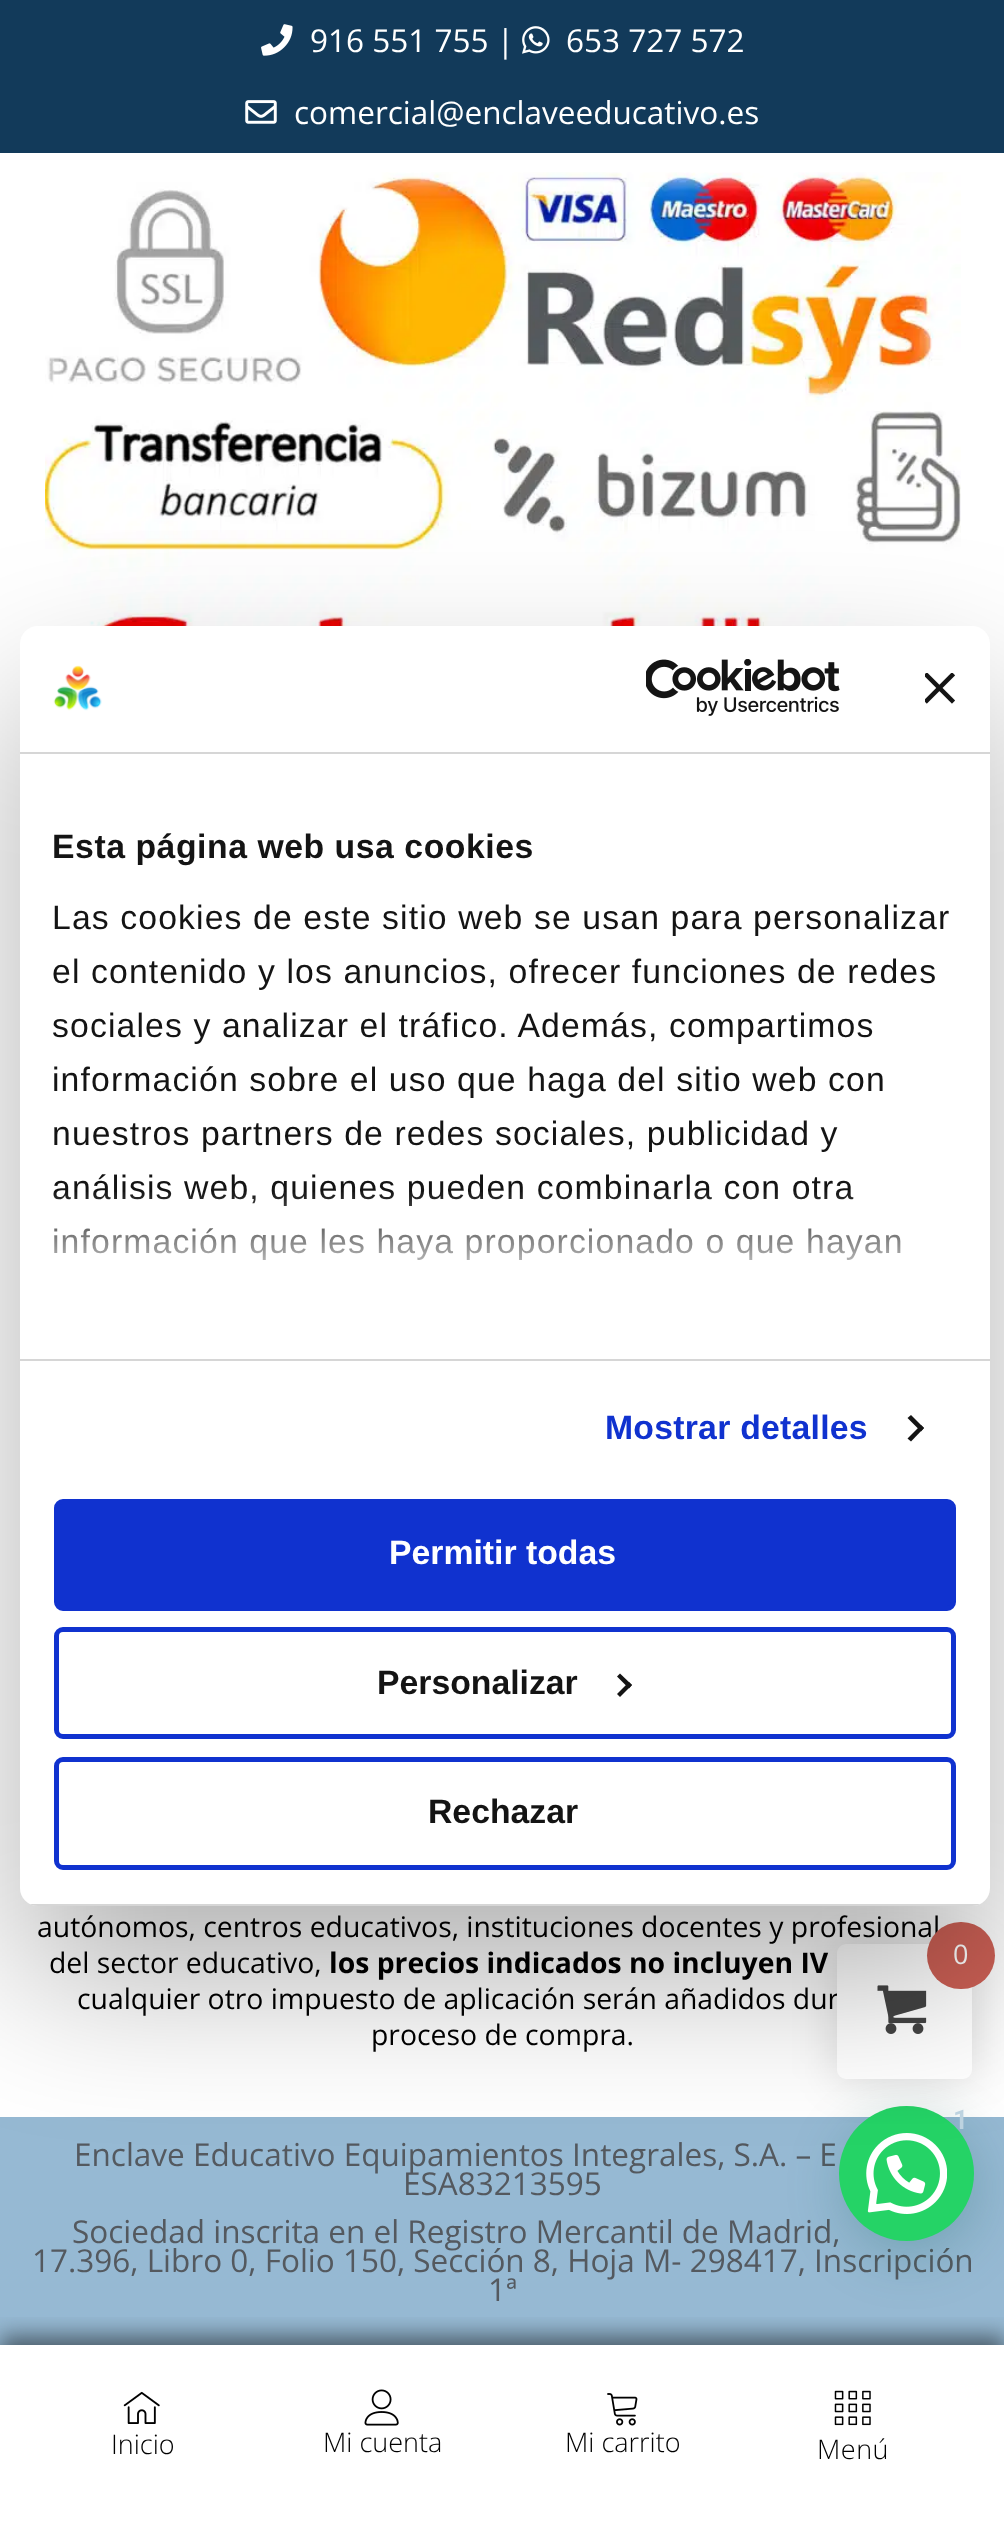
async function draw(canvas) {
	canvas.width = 1004;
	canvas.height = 2529;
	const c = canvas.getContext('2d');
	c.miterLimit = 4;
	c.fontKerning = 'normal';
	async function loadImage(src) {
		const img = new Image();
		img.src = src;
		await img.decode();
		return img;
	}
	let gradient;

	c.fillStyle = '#fff';
	c.fillRect(0, 0, 1004, 2529);
	c.fillStyle = '#123a5a';
	c.fillRect(0, 0, 1004, 153);
	c.drawImage(await loadImage('img1.png'), 261, 24, 32, 32);
	c.font = '31.5px Open Sans';
	c.fillStyle = '#fff';
	c.fillText('916 551 755 |', 310, 52);
	c.drawImage(await loadImage('img2.png'), 522, 26, 28, 28);
	c.fillText('653 727 572', 566, 52);
	c.drawImage(await loadImage('img3.png'), 245, 100, 32, 24);
	c.fillText('comercial@enclaveeducativo.es', 294, 124);
	c.drawImage(await loadImage('img4.png'), 45, 172, 916, 454);
	c.font = '28.35px Open Sans';
	c.fillStyle = '#000';
	c.fillText('autónomos, centros educativos, instituciones docentes y profesional', 37, 1937);
	c.fillText('del sector educativo,', 49, 1973);
	c.font = 'bold 28.35px Open Sans';
	c.fillText('los precios indicados no incluyen IV', 329, 1973);
	c.font = '28.35px Open Sans';
	c.fillText('cualquier otro impuesto de aplicación serán añadidos dur', 77, 2009);
	c.fillText('proceso de compra.', 371, 2045);
	c.fillStyle = '#96b9d3';
	c.fillRect(0, 2117, 1004, 228);
	c.font = '31.5px Open Sans';
	c.fillStyle = '#54595f';
	for (const [text, x, y] of [
		['Enclave Educativo Equipamientos Integrales, S.A. – E', 74, 2166],
		['ESA83213595', 403, 2195],
		['Sociedad inscrita en el Registro Mercantil de Madrid,', 72, 2243],
		['17.396, Libro 0, Folio 150, Sección 8, Hoja M- 298417, Inscripción', 32, 2272],
		['1ª', 488, 2301],
	]) {
		c.fillText(text, x, y);
	}
	c.save();
	c.beginPath();
	c.rect(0, 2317, 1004, 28);
	c.clip();
	c.fillStyle = '#00000080';
	c.filter = 'blur(11px)';
	c.beginPath();
	c.rect(0, 2336, 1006, 184);
	c.fill();
	c.filter = 'none';
	c.restore();
	c.drawImage(await loadImage('img5.png'), 123, 2391, 37, 33);
	c.font = '300 27px Open Sans';
	c.fillStyle = '#000';
	c.fillText('Inicio', 111, 2454);
	c.drawImage(await loadImage('img6.png'), 364, 2389, 35, 37);
	c.fillText('Mi cuenta', 323, 2452);
	c.drawImage(await loadImage('img7.png'), 607, 2393, 31, 33);
	c.fillText('Mi carrito', 565, 2452);
	c.drawImage(await loadImage('img8.png'), 834, 2390, 37, 36);
	c.letterSpacing = '0.5px';
	c.fillText('Menú', 817, 2459);
	c.fillStyle = '#075e543d';
	c.filter = 'blur(27px)';
	c.beginPath();
	c.roundRect(842, 2120, 135, 135, 67.5);
	c.fill();
	c.filter = 'none';
	c.fillStyle = '#25d366';
	c.beginPath();
	c.arc(906.5, 2173.5, 67.5, 0, 2 * Math.PI);
	c.fill();
	c.drawImage(await loadImage('img10.png'), 866, 2133, 81, 81);
	c.fillStyle = '#00000026';
	c.filter = 'blur(22.5px)';
	c.beginPath();
	c.roundRect(837, 1944, 135, 135, 9);
	c.fill();
	c.filter = 'none';
	c.fillStyle = '#fff';
	c.beginPath();
	c.roundRect(837, 1944, 135, 135, 9);
	c.fill();
	c.fillStyle = '#cc6055';
	c.beginPath();
	c.roundRect(927, 1922, 68, 67, 33.5);
	c.fill();
	c.letterSpacing = '0px';
	c.font = '27px Open Sans';
	c.fillStyle = '#fff';
	c.fillText('0', 953, 1964);
	c.drawImage(await loadImage('img9.png'), 877, 1985, 50, 49);
	c.font = '600 27px Roboto';
	c.fillStyle = '#bed4e1';
	c.fillText('1', 953, 2129);
	c.fillStyle = '#0000004d';
	c.filter = 'blur(76.5px)';
	c.beginPath();
	c.roundRect(20, 698, 970, 1280, 18);
	c.fill();
	c.filter = 'none';
	c.fillStyle = '#fff';
	c.beginPath();
	c.roundRect(20, 626, 970, 1280, 18);
	c.fill();
	c.fillStyle = '#d6d6d6';
	c.fillRect(20, 752, 970, 2);
	c.drawImage(await loadImage('img11.png'), 53, 665, 49, 46);
	c.drawImage(await loadImage('img12.png'), 646, 659, 194, 57);
	c.drawImage(await loadImage('img13.png'), 925, 673, 30, 31);
	c.fillRect(20, 1359, 970, 2);
	c.letterSpacing = '0.55px';
	c.font = 'bold 33.75px Liberation Sans';
	c.fillStyle = '#141414';
	c.fillText('Esta página web usa cookies', 52, 858);
	c.letterSpacing = '1.12px';
	c.font = '33.75px Liberation Sans';
	for (const [text, x, y] of [
		['Las cookies de este sitio web se usan para personalizar', 52, 929],
		['el contenido y los anuncios, ofrecer funciones de redes', 52, 983],
		['sociales y analizar el tráfico. Además, compartimos', 52, 1037],
		['información sobre el uso que haga del sitio web con', 52, 1091],
		['nuestros partners de redes sociales, publicidad y', 52, 1145],
		['análisis web, quienes pueden combinarla con otra', 52, 1199],
		['información que les haya proporcionado o que hayan', 52, 1253],
	]) {
		c.fillText(text, x, y);
	}
	gradient = c.createLinearGradient(489, 1358, 489, 1190);
	gradient.addColorStop(0, '#fff');
	gradient.addColorStop(0.5, '#ffffffcc');
	gradient.addColorStop(1, '#ffffff00');
	c.fillStyle = gradient;
	c.fillRect(53, 1192, 848, 68);
	c.letterSpacing = '0.25px';
	c.font = 'bold 33.75px Liberation Sans';
	c.fillStyle = '#1032cf';
	c.fillText('Mostrar detalles', 605, 1439);
	c.fillStyle = '#141414';
	c.beginPath();
	c.moveTo(911, 1415);
	c.lineTo(924, 1428);
	c.lineTo(921, 1431.5);
	c.lineTo(907.5, 1418);
	c.closePath();
	c.fill();
	c.beginPath();
	c.moveTo(921, 1425);
	c.lineTo(924, 1428);
	c.lineTo(911, 1441.5);
	c.lineTo(907.5, 1438.5);
	c.closePath();
	c.fill();
	c.save();
	c.beginPath();
	c.roundRect(20, 626, 970, 1280, 18);
	c.clip();
	c.fillStyle = '#d6d6d6';
	c.fillRect(30, 1904, 950, 2);
	c.restore();
	c.fillStyle = '#1032cf';
	c.beginPath();
	c.roundRect(56.5, 1501.5, 897, 107, 6.5);
	c.fill();
	c.strokeStyle = '#1032cf';
	c.lineWidth = 5;
	c.stroke();
	c.letterSpacing = '0px';
	c.fillStyle = '#fff';
	c.fillText('Permitir todas', 389, 1564);
	c.beginPath();
	c.roundRect(56.5, 1629.5, 897, 107, 6.5);
	c.stroke();
	c.fillStyle = '#141414';
	c.fillText('Personalizar', 377, 1694);
	c.beginPath();
	c.moveTo(620, 1673.5);
	c.lineTo(632, 1685);
	c.lineTo(629, 1688.5);
	c.lineTo(617, 1676.5);
	c.closePath();
	c.fill();
	c.beginPath();
	c.moveTo(629, 1682);
	c.lineTo(632, 1685);
	c.lineTo(620, 1697);
	c.lineTo(617, 1694);
	c.closePath();
	c.fill();
	c.beginPath();
	c.roundRect(56.5, 1759.5, 897, 108, 6.5);
	c.stroke();
	c.fillText('Rechazar', 428, 1823);
}

draw(document.querySelector('canvas'));
